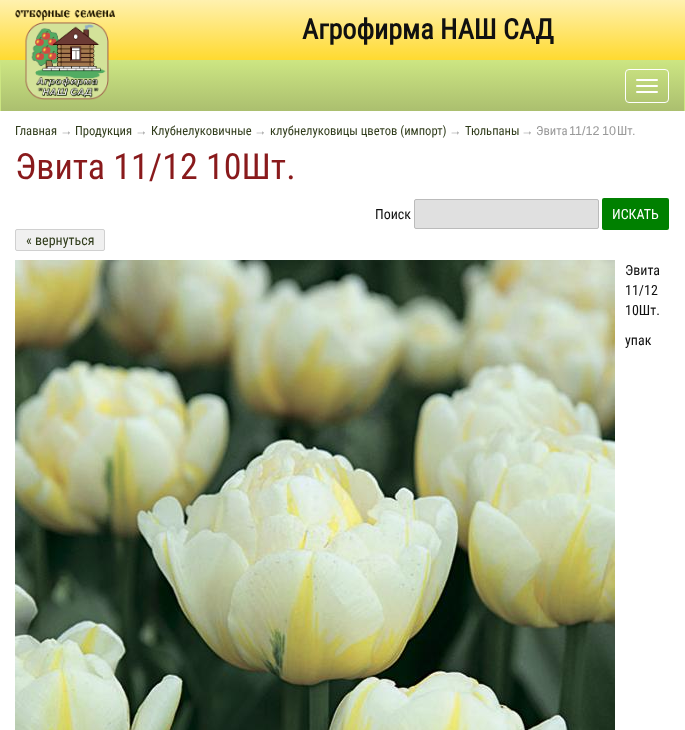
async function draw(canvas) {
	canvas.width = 685;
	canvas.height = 730;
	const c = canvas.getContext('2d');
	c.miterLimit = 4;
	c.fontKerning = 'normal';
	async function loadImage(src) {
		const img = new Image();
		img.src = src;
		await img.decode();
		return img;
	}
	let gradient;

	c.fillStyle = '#fff';
	c.fillRect(0, 0, 685, 730);
	gradient = c.createLinearGradient(343, 0, 343, 60);
	gradient.addColorStop(0, '#fff1af');
	gradient.addColorStop(1, '#ffda30');
	c.fillStyle = gradient;
	c.fillRect(0, 0, 685, 60);
	gradient = c.createLinearGradient(343, 61, 343, 111);
	gradient.addColorStop(0, '#cce582');
	gradient.addColorStop(1, '#abbf6f');
	c.fillStyle = gradient;
	c.fillRect(1, 61, 683, 50);
	c.fillStyle = '#cce582';
	c.fillRect(0, 60, 685, 1);
	c.drawImage(await loadImage('img1.png'), 15, 10, 100, 90);
	c.font = 'bold 28px Roboto Condensed';
	c.fillStyle = '#111';
	c.fillText('Агрофирма НАШ САД', 302, 39);
	c.fillStyle = '#cce582';
	c.fillRect(684, 60, 1, 51);
	c.fillRect(0, 60, 1, 51);
	c.beginPath();
	c.roundRect(625.5, 69.5, 43, 33, 3.5);
	c.strokeStyle = '#fff';
	c.stroke();
	c.fillStyle = '#fff';
	c.beginPath();
	c.roundRect(636, 79, 22, 2, 1);
	c.fill();
	c.beginPath();
	c.roundRect(636, 85, 22, 2, 1);
	c.fill();
	c.beginPath();
	c.roundRect(636, 91, 22, 2, 1);
	c.fill();
	c.font = '12.6px Roboto Condensed';
	c.fillStyle = '#303c1b';
	c.fillText('Главная', 15, 135);
	c.font = '12.6px Liberation Sans';
	c.fillStyle = '#999';
	c.fillText('→', 60, 135);
	c.font = '12.6px Roboto Condensed';
	c.fillStyle = '#303c1b';
	c.fillText('Продукция', 75, 135);
	c.font = '12.6px Liberation Sans';
	c.fillStyle = '#999';
	c.fillText('→', 135, 135);
	c.font = '12.6px Roboto Condensed';
	c.fillStyle = '#303c1b';
	c.fillText('Клубнелуковичные', 151, 135);
	c.font = '12.6px Liberation Sans';
	c.fillStyle = '#999';
	c.fillText('→', 254, 135);
	c.font = '12.6px Roboto Condensed';
	c.fillStyle = '#303c1b';
	c.fillText('клубнелуковицы цветов (импорт)', 270, 135);
	c.font = '12.6px Liberation Sans';
	c.fillStyle = '#999';
	c.fillText('→', 449, 135);
	c.font = '12.6px Roboto Condensed';
	c.fillStyle = '#303c1b';
	c.fillText('Тюльпаны', 465, 135);
	c.font = '12.6px Liberation Sans';
	c.fillStyle = '#999';
	c.fillText('→', 521, 135);
	c.font = '12.6px Roboto Condensed';
	c.fillText('Эвита', 536, 135);
	c.wordSpacing = '-1px';
	c.font = '12.6px Liberation Sans';
	c.fillText('11/12 10', 569, 135);
	c.wordSpacing = '0px';
	c.font = '12.6px Roboto Condensed';
	c.fillText('Шт', 617, 135);
	c.font = '12.6px Liberation Sans';
	c.fillText('.', 632, 135);
	c.font = '36px Roboto Condensed';
	c.fillStyle = '#891a1c';
	c.fillText('Эвита 11/12 10Шт.', 15, 179);
	c.font = '14px Roboto Condensed';
	c.fillStyle = '#111';
	c.fillText('Поиск', 375, 219);
	c.fillStyle = '#e0e0e0';
	c.beginPath();
	c.roundRect(414.5, 199.5, 184, 29, 1.5);
	c.fill();
	c.strokeStyle = '#bbb';
	c.stroke();
	c.fillStyle = '#008000';
	c.beginPath();
	c.roundRect(602, 198, 67, 32, 2);
	c.fill();
	c.fillStyle = '#fff';
	c.fillText('ИСКАТЬ', 612, 219);
	c.fillStyle = '#f0f0f0';
	c.beginPath();
	c.roundRect(15.5, 229.5, 89, 21, 1.5);
	c.fill();
	c.strokeStyle = '#d0d0d0';
	c.stroke();
	c.fillStyle = '#303c1b';
	c.fillText('« вернуться', 26, 245);
	c.drawImage(await loadImage('img2.png'), 15, 260, 600, 470);
	c.fillStyle = '#111';
	for (const [text, x, y] of [
		['Эвита', 625, 275],
		['11/12', 625, 295],
		['10Шт.', 625, 315],
		['упак', 625, 345],
	]) {
		c.fillText(text, x, y);
	}
}

draw(document.querySelector('canvas'));
